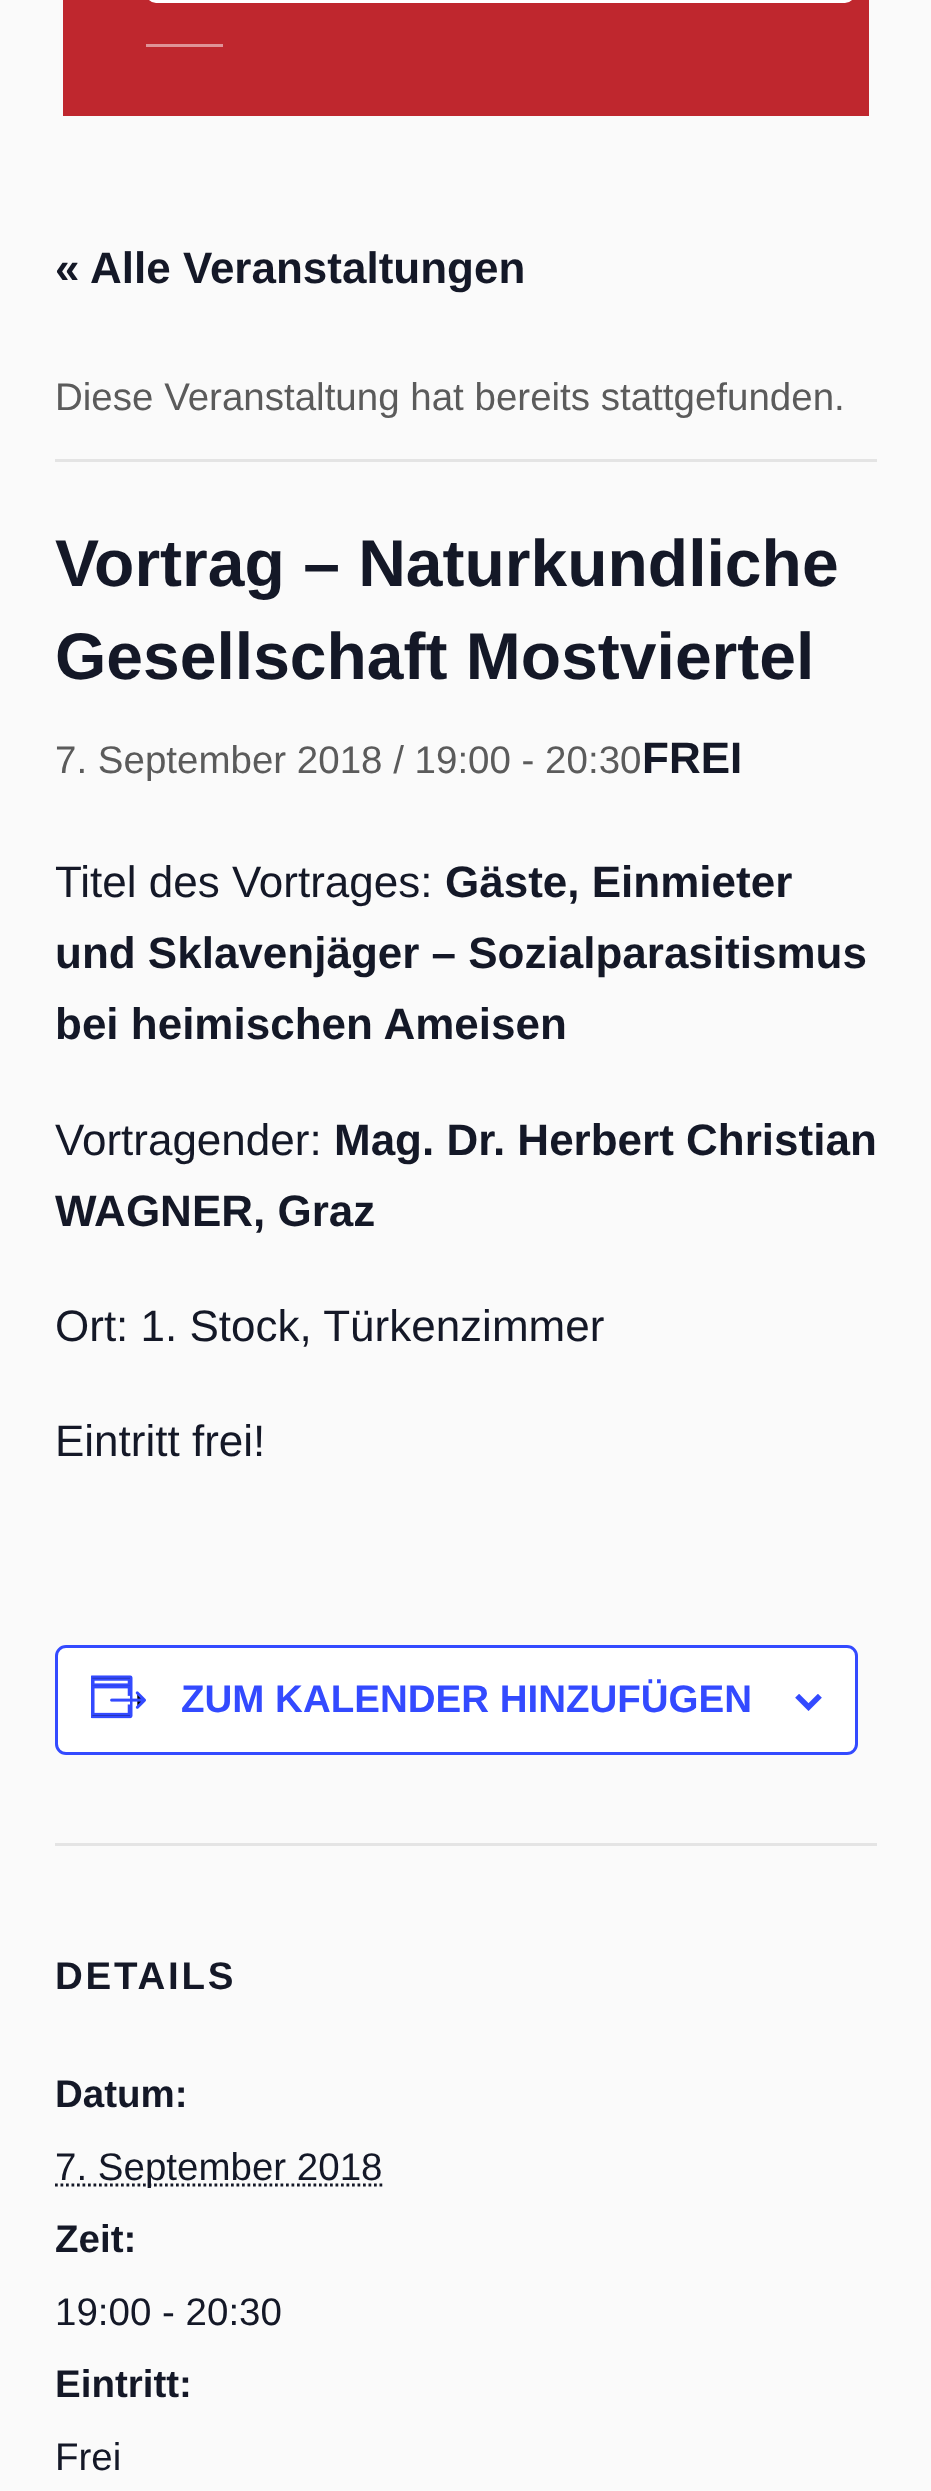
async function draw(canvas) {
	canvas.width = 931;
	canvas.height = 2491;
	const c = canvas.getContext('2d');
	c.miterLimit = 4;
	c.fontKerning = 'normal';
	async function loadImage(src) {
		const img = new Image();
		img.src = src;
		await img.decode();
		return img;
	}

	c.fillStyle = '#fafafa';
	c.fillRect(0, 0, 931, 2491);
	c.fillStyle = '#bf272e';
	c.fillRect(63, 0, 806, 116);
	c.beginPath();
	c.roundRect(147.5, -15.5, 706, 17, 12.5);
	c.strokeStyle = '#fff';
	c.lineWidth = 3;
	c.stroke();
	c.fillStyle = '#df9397';
	c.fillRect(146, 44, 77, 3);
	c.font = 'bold 44px Liberation Sans';
	c.fillStyle = '#141827';
	c.fillText('« Alle Veranstaltungen', 55, 283);
	c.fillStyle = '#e4e4e4';
	c.fillRect(55, 459, 822, 3);
	c.font = '38.5px Liberation Sans';
	c.fillStyle = '#5b5b5b';
	c.fillText('Diese Veranstaltung hat bereits stattgefunden.', 55, 410);
	c.font = 'bold 66px Liberation Sans';
	c.fillStyle = '#141827';
	c.fillText('Vortrag – Naturkundliche', 55, 586);
	c.fillText('Gesellschaft Mostviertel', 55, 679);
	c.font = '38.5px Liberation Sans';
	c.fillStyle = '#5b5b5b';
	c.fillText('7. September 2018 / 19:00 - 20:30', 55, 773);
	c.font = 'bold 44px Liberation Sans';
	c.fillStyle = '#141827';
	c.fillText('FREI', 642, 773);
	c.font = '44px Liberation Sans';
	c.fillText('Titel des Vortrages:', 55, 897);
	c.font = 'bold 44px Liberation Sans';
	for (const [text, x, y] of [
		['Gäste, Einmieter', 445, 897],
		['und Sklavenjäger – Sozialparasitismus', 55, 968],
		['bei heimischen Ameisen', 55, 1039],
	]) {
		c.fillText(text, x, y);
	}
	c.font = '44px Liberation Sans';
	c.fillText('Vortragender:', 55, 1155);
	c.font = 'bold 44px Liberation Sans';
	c.fillText('Mag. Dr. Herbert Christian', 334, 1155);
	c.fillText('WAGNER, Graz', 55, 1226);
	c.font = '44px Liberation Sans';
	c.fillText('Ort: 1. Stock, Türkenzimmer', 55, 1341);
	c.fillText('Eintritt frei!', 55, 1456);
	c.fillStyle = '#fff';
	c.beginPath();
	c.roundRect(56.5, 1646.5, 800, 107, 9.5);
	c.fill();
	c.strokeStyle = '#334aff';
	c.stroke();
	c.drawImage(await loadImage('img1.png'), 91, 1675, 55, 44);
	c.font = 'bold 38.5px Liberation Sans';
	c.fillStyle = '#334aff';
	c.fillText('ZUM KALENDER HINZUFÜGEN', 181, 1712);
	c.drawImage(await loadImage('img2.png'), 795, 1694, 27, 17);
	c.fillStyle = '#e4e4e4';
	c.fillRect(55, 1843, 822, 3);
	c.letterSpacing = '2.75px';
	c.fillStyle = '#141827';
	c.fillText('DETAILS', 55, 1989);
	c.letterSpacing = '0px';
	c.fillText('Datum:', 55, 2107);
	c.beginPath();
	c.moveTo(55, 2185);
	c.lineTo(382.5, 2185);
	c.strokeStyle = '#141827';
	c.lineWidth = 2.8;
	c.setLineDash([2.75, 2.75]);
	c.stroke();
	c.font = '38.5px Liberation Sans';
	c.fillText('7. September 2018', 55, 2180);
	c.font = 'bold 38.5px Liberation Sans';
	c.fillText('Zeit:', 55, 2252);
	c.font = '38.5px Liberation Sans';
	c.fillText('19:00 - 20:30', 55, 2325);
	c.font = 'bold 38.5px Liberation Sans';
	c.fillText('Eintritt:', 55, 2397);
	c.font = '38.5px Liberation Sans';
	c.fillText('Frei', 55, 2470);
}

draw(document.querySelector('canvas'));
